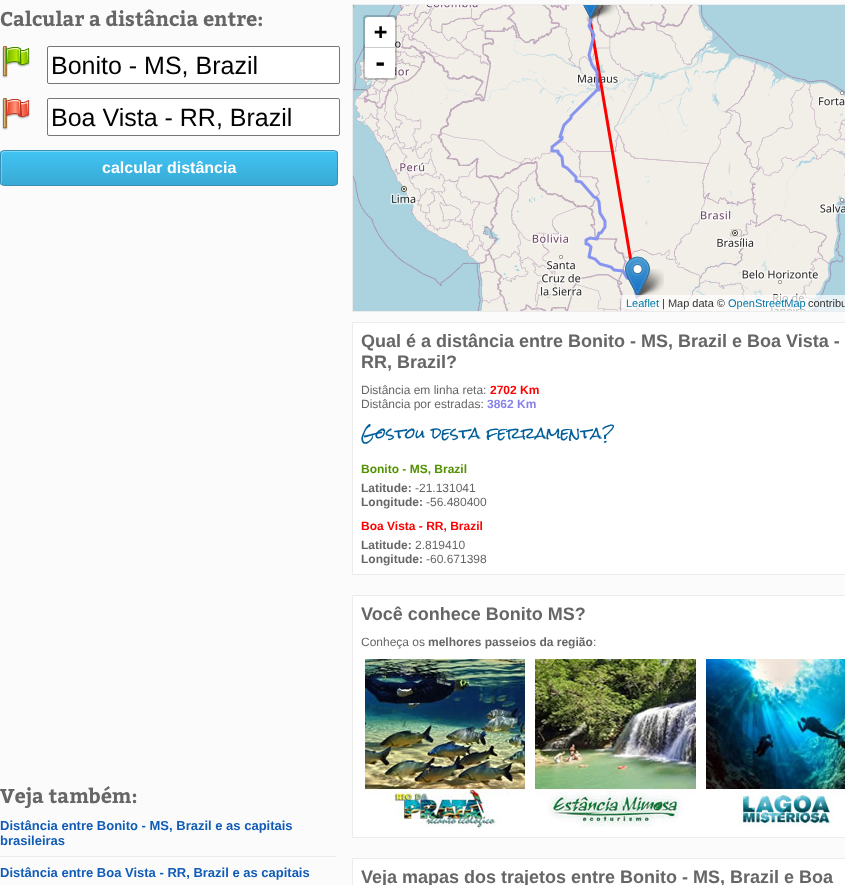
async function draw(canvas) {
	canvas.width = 845;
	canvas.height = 885;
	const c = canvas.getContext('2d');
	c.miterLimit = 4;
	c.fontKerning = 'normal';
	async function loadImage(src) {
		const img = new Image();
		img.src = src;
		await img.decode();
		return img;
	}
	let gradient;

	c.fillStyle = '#fbfbfb';
	c.fillRect(0, 0, 845, 885);
	c.font = 'bold 20px Bitter';
	c.fillStyle = '#666';
	c.fillText('Calcular a distância entre:', 0, 26);
	c.drawImage(await loadImage('img1.png'), 2, 46, 28, 32);
	c.fillStyle = '#fff';
	c.beginPath();
	c.roundRect(47.5, 46.5, 292, 37, 1.5);
	c.fill();
	c.strokeStyle = '#767676';
	c.stroke();
	c.font = '25px Liberation Sans';
	c.fillStyle = '#000';
	c.fillText('Bonito - MS, Brazil', 51, 74);
	c.drawImage(await loadImage('img2.png'), 2, 98, 28, 32);
	c.fillStyle = '#fff';
	c.beginPath();
	c.roundRect(47.5, 98.5, 292, 37, 1.5);
	c.fill();
	c.stroke();
	c.fillStyle = '#000';
	c.fillText('Boa Vista - RR, Brazil', 51, 126);
	c.save();
	c.beginPath();
	c.roundRect(0, 150, 338, 36, 4);
	c.clip();
	gradient = c.createLinearGradient(169, 151, 169, 185);
	gradient.addColorStop(0, '#41c4f4');
	gradient.addColorStop(1, '#39aad4');
	c.fillStyle = gradient;
	c.fillRect(0, 151, 338, 34);
	c.restore();
	c.fillStyle = '#ffffff4d';
	c.beginPath();
	c.moveTo(5, 152);
	c.lineTo(336, 152);
	c.bezierCurveTo(336, 151, 335, 151, 334, 151);
	c.lineTo(4, 151);
	c.bezierCurveTo(2, 151, 1, 152, 1, 154);
	c.lineTo(1, 182);
	c.bezierCurveTo(1, 183, 1, 184, 2, 184);
	c.lineTo(2, 160);
	c.bezierCurveTo(2, 157, 1, 152, 5, 152);
	c.closePath();
	c.fill();
	c.beginPath();
	c.roundRect(0.5, 150.5, 337, 35, 3.5);
	c.strokeStyle = '#3a8fb6';
	c.stroke();
	c.font = 'bold 16px Liberation Sans';
	c.fillStyle = '#fff';
	c.fillText('calcular distância', 102, 173);
	c.font = 'bold 20px Bitter';
	c.fillStyle = '#666';
	c.fillText('Veja também:', 0, 803);
	c.font = 'bold 13px Liberation Sans';
	c.fillStyle = '#105cb6';
	c.fillText('Distância entre Bonito - MS, Brazil e as capitais', 0, 830);
	c.fillText('brasileiras', 0, 845);
	c.fillStyle = '#ececec';
	c.fillRect(0, 856, 336, 1);
	c.fillStyle = '#105cb6';
	c.fillText('Distância entre Boa Vista - RR, Brazil e as capitais', 0, 877);
	c.strokeStyle = '#ececec';
	c.strokeRect(352.5, 4.5, 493, 307);
	c.drawImage(await loadImage('img3.png'), 353, 5, 159, 46);
	c.drawImage(await loadImage('img4.png'), 512, 5, 256, 46);
	c.fillStyle = '#aad3df';
	c.fillRect(768, 5, 77, 46);
	c.drawImage(await loadImage('img5.png'), 353, 51, 159, 256);
	c.drawImage(await loadImage('img6.png'), 512, 51, 256, 256);
	c.drawImage(await loadImage('img7.png'), 768, 51, 77, 256);
	c.drawImage(await loadImage('img8.png'), 353, 307, 159, 4);
	c.drawImage(await loadImage('img9.png'), 512, 307, 256, 4);
	c.drawImage(await loadImage('img10.png'), 768, 307, 77, 4);
	c.drawImage(await loadImage('img19.png'), 550, 15, 89, 284);
	c.drawImage(await loadImage('img15.png'), 588, 5, 28, 14);
	c.drawImage(await loadImage('img16.png'), 588, 5, 28, 14);
	c.drawImage(await loadImage('img11.png'), 583, 5, 15, 14);
	c.drawImage(await loadImage('img12.png'), 583, 5, 15, 14);
	c.drawImage(await loadImage('img17.png'), 635, 269, 29, 28);
	c.drawImage(await loadImage('img18.png'), 635, 269, 29, 28);
	c.drawImage(await loadImage('img13.png'), 625, 256, 25, 41);
	c.drawImage(await loadImage('img14.png'), 625, 256, 25, 41);
	c.beginPath();
	c.roundRect(364, 16, 32, 63, 3);
	c.strokeStyle = '#00000033';
	c.lineWidth = 2;
	c.stroke();
	c.fillStyle = '#fff';
	c.beginPath();
	c.roundRect(365, 17, 30, 31, [4, 4, 0, 0]);
	c.fill();
	c.fillStyle = '#ccc';
	c.fillRect(365, 47, 30, 1);
	c.font = 'bold 22px DejaVu Sans Mono';
	c.fillStyle = '#000';
	c.fillText('+', 374, 39);
	c.fillStyle = '#fff';
	c.beginPath();
	c.roundRect(365, 48, 30, 30, [0, 0, 4, 4]);
	c.fill();
	c.font = 'bold 24px DejaVu Sans Mono';
	c.fillStyle = '#000';
	c.fillText('-', 373, 71);
	c.fillStyle = '#ffffffb3';
	c.fillRect(621, 295, 224, 16);
	c.font = '11px Liberation Sans';
	c.fillStyle = '#0078a8';
	c.fillText('Leaflet', 626, 307);
	c.fillStyle = '#333';
	c.fillText('| Map data ©', 662, 307);
	c.fillStyle = '#0078a8';
	c.fillText('OpenStreetMap', 728, 307);
	c.fillStyle = '#333';
	c.fillText('contribu', 808, 307);
	c.fillStyle = '#fff';
	c.beginPath();
	c.rect(352.5, 322.5, 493, 252);
	c.fill();
	c.strokeStyle = '#ececec';
	c.lineWidth = 1;
	c.stroke();
	c.font = 'bold 18px Liberation Sans';
	c.fillStyle = '#666';
	c.fillText('Qual é a distância entre Bonito - MS, Brazil e Boa Vista -', 361, 347);
	c.fillText('RR, Brazil?', 361, 368);
	c.font = '12px Liberation Sans';
	c.fillText('Distância em linha reta:', 361, 394);
	c.font = 'bold 12px Liberation Sans';
	c.fillStyle = '#f00';
	c.fillText('2702 Km', 490, 394);
	c.font = '12px Liberation Sans';
	c.fillStyle = '#666';
	c.fillText('Distância por estradas:', 361, 408);
	c.font = 'bold 12px Liberation Sans';
	c.fillStyle = '#8782ea';
	c.fillText('3862 Km', 487, 408);
	c.font = '15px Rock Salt';
	c.fillStyle = '#025e9a';
	c.fillText('Gostou desta ferramenta?', 361, 439);
	c.font = 'bold 12px Liberation Sans';
	c.fillStyle = '#539200';
	c.fillText('Bonito - MS, Brazil', 361, 473);
	c.fillStyle = '#666';
	c.fillText('Latitude:', 361, 492);
	c.font = '12px Liberation Sans';
	c.fillText('-21.131041', 415, 492);
	c.font = 'bold 12px Liberation Sans';
	c.fillText('Longitude:', 361, 506);
	c.font = '12px Liberation Sans';
	c.fillText('-56.480400', 426, 506);
	c.font = 'bold 12px Liberation Sans';
	c.fillStyle = '#f00';
	c.fillText('Boa Vista - RR, Brazil', 361, 530);
	c.fillStyle = '#666';
	c.fillText('Latitude:', 361, 549);
	c.font = '12px Liberation Sans';
	c.fillText('2.819410', 415, 549);
	c.font = 'bold 12px Liberation Sans';
	c.fillText('Longitude:', 361, 563);
	c.font = '12px Liberation Sans';
	c.fillText('-60.671398', 426, 563);
	c.fillStyle = '#fff';
	c.beginPath();
	c.rect(352.5, 595.5, 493, 242);
	c.fill();
	c.stroke();
	c.font = 'bold 18px Liberation Sans';
	c.fillStyle = '#666';
	c.fillText('Você conhece Bonito MS?', 361, 620);
	c.font = '12px Liberation Sans';
	c.fillText('Conheça os', 361, 646);
	c.font = 'bold 12px Liberation Sans';
	c.fillText('melhores passeios da região', 428, 646);
	c.font = '12px Liberation Sans';
	c.fillText(':', 593, 646);
	c.drawImage(await loadImage('img20.png'), 365, 659, 160, 170);
	c.drawImage(await loadImage('img21.png'), 535, 659, 161, 168);
	c.drawImage(await loadImage('img22.png'), 706, 659, 139, 168);
	c.fillStyle = '#fff';
	c.beginPath();
	c.rect(352.5, 858.5, 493, 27);
	c.fill();
	c.stroke();
	c.font = 'bold 18px Liberation Sans';
	c.fillStyle = '#666';
	c.fillText('Veja mapas dos trajetos entre Bonito - MS, Brazil e Boa', 361, 883);
}

draw(document.querySelector('canvas'));
